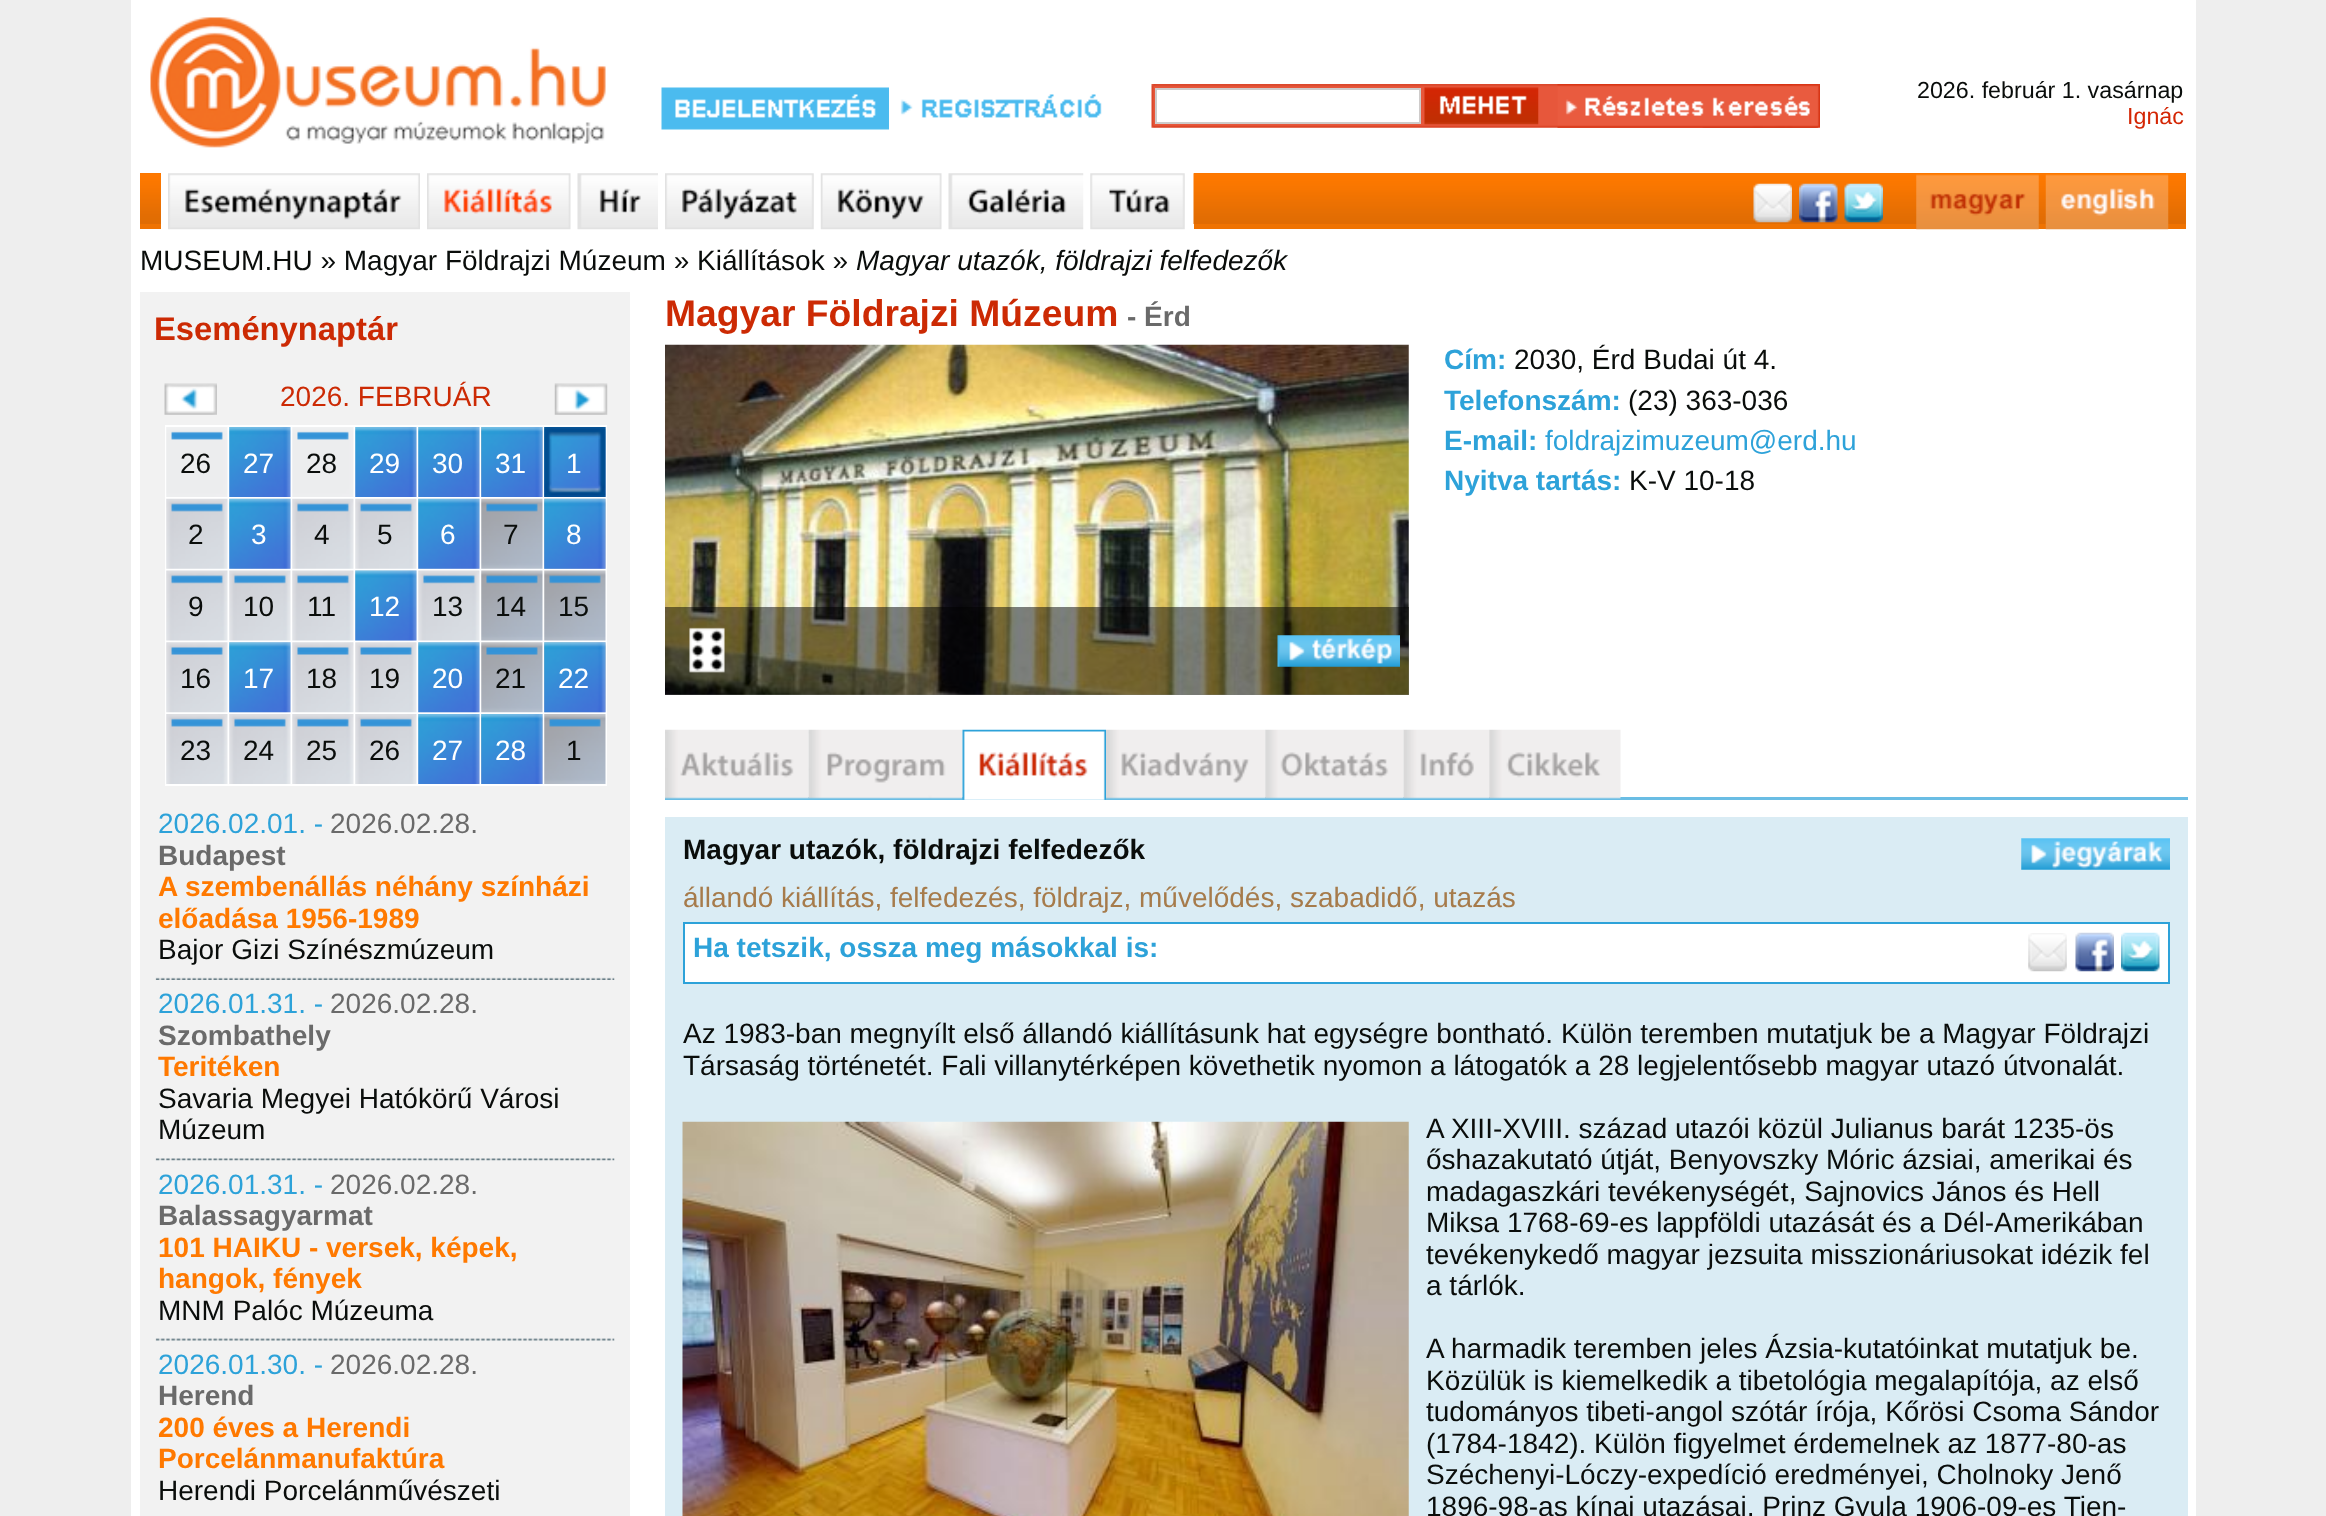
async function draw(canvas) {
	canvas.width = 2326;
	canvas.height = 1516;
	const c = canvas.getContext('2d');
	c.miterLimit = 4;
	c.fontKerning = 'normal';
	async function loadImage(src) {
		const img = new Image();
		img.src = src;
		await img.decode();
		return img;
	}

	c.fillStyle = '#eee';
	c.fillRect(0, 0, 2326, 1516);
	c.fillStyle = '#fff';
	c.fillRect(131, 0, 2065, 1516);
	c.drawImage(await loadImage('img1.png'), 150, 17, 456, 131);
	c.drawImage(await loadImage('img2.png'), 661, 87, 228, 43);
	c.drawImage(await loadImage('img3.png'), 900, 94, 202, 24);
	c.drawImage(await loadImage('img4.png'), 1151, 84, 668, 44);
	c.beginPath();
	c.rect(1156, 89, 264, 34);
	c.fill();
	c.strokeStyle = '#cecbca';
	c.lineWidth = 2;
	c.stroke();
	c.drawImage(await loadImage('img5.png'), 1424, 87, 115, 38);
	c.drawImage(await loadImage('img6.png'), 1557, 84, 263, 44);
	c.font = '23.25px Liberation Sans';
	c.fillStyle = '#0a0d0b';
	c.fillText('2026. február 1. vasárnap', 1917, 98);
	c.fillStyle = '#d42604';
	c.fillText('Ignác', 2127, 124);
	c.fillStyle = '#ef7302';
	c.fillRect(140, 173, 21, 56);
	c.drawImage(await loadImage('img7.png'), 140, 173, 21, 51);
	c.drawImage(await loadImage('img8.png'), 168, 173, 252, 57);
	c.drawImage(await loadImage('img9.png'), 427, 173, 144, 57);
	c.drawImage(await loadImage('img10.png'), 577, 173, 81, 57);
	c.drawImage(await loadImage('img11.png'), 665, 173, 149, 57);
	c.drawImage(await loadImage('img12.png'), 820, 173, 122, 57);
	c.drawImage(await loadImage('img13.png'), 948, 173, 136, 57);
	c.drawImage(await loadImage('img14.png'), 1090, 173, 95, 57);
	c.fillRect(1194, 173, 992, 56);
	c.drawImage(await loadImage('img15.png'), 1193, 173, 993, 51);
	c.drawImage(await loadImage('img16.png'), 1753, 183, 39, 40);
	c.drawImage(await loadImage('img17.png'), 1799, 183, 39, 40);
	c.drawImage(await loadImage('img18.png'), 1844, 183, 39, 40);
	c.drawImage(await loadImage('img19.png'), 1916, 174, 123, 56);
	c.drawImage(await loadImage('img20.png'), 2045, 174, 124, 56);
	c.font = '28px Liberation Sans';
	c.fillStyle = '#0a0d0b';
	c.fillText('MUSEUM.HU » Magyar Földrajzi Múzeum » Kiállítások »', 140, 270);
	c.font = 'italic 28px Liberation Sans';
	c.fillText('Magyar utazók, földrajzi felfedezők', 856, 270);
	c.fillStyle = '#f2f2f2';
	c.fillRect(140, 292, 490, 1224);
	c.font = 'bold 32.75px Liberation Sans';
	c.fillStyle = '#cc2a04';
	c.fillText('Eseménynaptár', 154, 340);
	c.drawImage(await loadImage('img21.png'), 164, 383, 53, 32);
	c.font = '28px Liberation Sans';
	c.fillText('2026. FEBRUÁR', 280, 406);
	c.drawImage(await loadImage('img22.png'), 554, 383, 54, 32);
	c.fillStyle = '#fff';
	c.fillRect(165, 425, 442, 361);
	c.drawImage(await loadImage('img23.png'), 166, 427, 62, 70);
	c.drawImage(await loadImage('img24.png'), 171, 431, 52, 9);
	c.fillStyle = '#0a0d0b';
	c.fillText('26', 180, 473);
	c.drawImage(await loadImage('img23.png'), 229, 427, 62, 70);
	c.drawImage(await loadImage('img25.png'), 229, 427, 62, 70);
	c.fillStyle = '#fff';
	c.fillText('27', 243, 473);
	c.drawImage(await loadImage('img23.png'), 292, 427, 62, 70);
	c.drawImage(await loadImage('img26.png'), 297, 431, 52, 9);
	c.fillStyle = '#0a0d0b';
	c.fillText('28', 306, 473);
	c.drawImage(await loadImage('img23.png'), 355, 427, 62, 70);
	c.drawImage(await loadImage('img27.png'), 355, 427, 62, 70);
	c.fillStyle = '#fff';
	c.fillText('29', 369, 473);
	c.drawImage(await loadImage('img23.png'), 418, 427, 62, 70);
	c.drawImage(await loadImage('img25.png'), 418, 427, 62, 70);
	c.fillText('30', 432, 473);
	c.drawImage(await loadImage('img28.png'), 481, 427, 62, 70);
	c.drawImage(await loadImage('img29.png'), 481, 427, 62, 70);
	c.fillText('31', 495, 473);
	c.drawImage(await loadImage('img30.png'), 544, 427, 62, 70);
	c.drawImage(await loadImage('img31.png'), 544, 427, 62, 70);
	c.drawImage(await loadImage('img32.png'), 544, 427, 62, 70);
	c.fillText('1', 566, 473);
	c.drawImage(await loadImage('img33.png'), 166, 498, 62, 71);
	c.drawImage(await loadImage('img34.png'), 171, 503, 52, 9);
	c.fillStyle = '#0a0d0b';
	c.fillText('2', 188, 544);
	c.drawImage(await loadImage('img35.png'), 229, 498, 62, 71);
	c.drawImage(await loadImage('img36.png'), 229, 498, 62, 71);
	c.fillStyle = '#fff';
	c.fillText('3', 251, 544);
	c.drawImage(await loadImage('img35.png'), 292, 498, 62, 71);
	c.drawImage(await loadImage('img37.png'), 297, 503, 52, 9);
	c.fillStyle = '#0a0d0b';
	c.fillText('4', 314, 544);
	c.drawImage(await loadImage('img33.png'), 355, 498, 62, 71);
	c.drawImage(await loadImage('img34.png'), 360, 503, 52, 9);
	c.fillText('5', 377, 544);
	c.drawImage(await loadImage('img35.png'), 418, 498, 62, 71);
	c.drawImage(await loadImage('img36.png'), 418, 498, 62, 71);
	c.fillStyle = '#fff';
	c.fillText('6', 440, 544);
	c.drawImage(await loadImage('img38.png'), 481, 498, 62, 71);
	c.drawImage(await loadImage('img39.png'), 486, 503, 52, 9);
	c.fillStyle = '#0a0d0b';
	c.fillText('7', 503, 544);
	c.drawImage(await loadImage('img40.png'), 544, 498, 62, 71);
	c.drawImage(await loadImage('img41.png'), 544, 498, 62, 71);
	c.fillStyle = '#fff';
	c.fillText('8', 566, 544);
	c.drawImage(await loadImage('img42.png'), 166, 570, 62, 71);
	c.drawImage(await loadImage('img43.png'), 171, 575, 52, 9);
	c.fillStyle = '#0a0d0b';
	c.fillText('9', 188, 616);
	c.drawImage(await loadImage('img44.png'), 229, 570, 62, 71);
	c.drawImage(await loadImage('img45.png'), 234, 575, 52, 9);
	c.fillText('10', 243, 616);
	c.drawImage(await loadImage('img44.png'), 292, 570, 62, 71);
	c.drawImage(await loadImage('img45.png'), 297, 575, 52, 9);
	c.fillText('11', 307, 616);
	c.drawImage(await loadImage('img42.png'), 355, 570, 62, 71);
	c.drawImage(await loadImage('img46.png'), 355, 570, 62, 71);
	c.fillStyle = '#fff';
	c.fillText('12', 369, 616);
	c.drawImage(await loadImage('img44.png'), 418, 570, 62, 71);
	c.drawImage(await loadImage('img45.png'), 423, 575, 52, 9);
	c.fillStyle = '#0a0d0b';
	c.fillText('13', 432, 616);
	c.drawImage(await loadImage('img47.png'), 481, 570, 62, 71);
	c.drawImage(await loadImage('img48.png'), 486, 575, 52, 9);
	c.fillText('14', 495, 616);
	c.drawImage(await loadImage('img49.png'), 544, 570, 62, 71);
	c.drawImage(await loadImage('img50.png'), 549, 575, 52, 9);
	c.fillText('15', 558, 616);
	c.drawImage(await loadImage('img51.png'), 166, 642, 62, 71);
	c.drawImage(await loadImage('img52.png'), 171, 647, 52, 8);
	c.fillText('16', 180, 688);
	c.drawImage(await loadImage('img53.png'), 229, 642, 62, 71);
	c.drawImage(await loadImage('img54.png'), 229, 642, 62, 71);
	c.fillStyle = '#fff';
	c.fillText('17', 243, 688);
	c.drawImage(await loadImage('img53.png'), 292, 642, 62, 71);
	c.drawImage(await loadImage('img55.png'), 297, 647, 52, 8);
	c.fillStyle = '#0a0d0b';
	c.fillText('18', 306, 688);
	c.drawImage(await loadImage('img51.png'), 355, 642, 62, 71);
	c.drawImage(await loadImage('img52.png'), 360, 647, 52, 8);
	c.fillText('19', 369, 688);
	c.drawImage(await loadImage('img53.png'), 418, 642, 62, 71);
	c.drawImage(await loadImage('img54.png'), 418, 642, 62, 71);
	c.fillStyle = '#fff';
	c.fillText('20', 432, 688);
	c.drawImage(await loadImage('img56.png'), 481, 642, 62, 71);
	c.drawImage(await loadImage('img57.png'), 486, 647, 52, 8);
	c.fillStyle = '#0a0d0b';
	c.fillText('21', 495, 688);
	c.drawImage(await loadImage('img58.png'), 544, 642, 62, 71);
	c.drawImage(await loadImage('img59.png'), 544, 642, 62, 71);
	c.fillStyle = '#fff';
	c.fillText('22', 558, 688);
	c.drawImage(await loadImage('img60.png'), 166, 714, 62, 70);
	c.drawImage(await loadImage('img61.png'), 171, 718, 52, 9);
	c.fillStyle = '#0a0d0b';
	c.fillText('23', 180, 760);
	c.drawImage(await loadImage('img62.png'), 229, 714, 62, 70);
	c.drawImage(await loadImage('img63.png'), 234, 718, 52, 9);
	c.fillText('24', 243, 760);
	c.drawImage(await loadImage('img62.png'), 292, 714, 62, 70);
	c.drawImage(await loadImage('img63.png'), 297, 718, 52, 9);
	c.fillText('25', 306, 760);
	c.drawImage(await loadImage('img60.png'), 355, 714, 62, 70);
	c.drawImage(await loadImage('img61.png'), 360, 718, 52, 9);
	c.fillText('26', 369, 760);
	c.drawImage(await loadImage('img62.png'), 418, 714, 62, 70);
	c.drawImage(await loadImage('img64.png'), 418, 714, 62, 70);
	c.fillStyle = '#fff';
	c.fillText('27', 432, 760);
	c.drawImage(await loadImage('img28.png'), 481, 714, 62, 70);
	c.drawImage(await loadImage('img29.png'), 481, 714, 62, 70);
	c.fillText('28', 495, 760);
	c.drawImage(await loadImage('img30.png'), 544, 714, 62, 70);
	c.drawImage(await loadImage('img65.png'), 549, 718, 52, 9);
	c.fillStyle = '#0a0d0b';
	c.fillText('1', 566, 760);
	c.fillStyle = '#2da2d9';
	c.fillText('2026.02.01. -', 158, 833);
	c.fillStyle = '#6a6a6a';
	c.fillText('2026.02.28.', 330, 833);
	c.font = 'bold 28px Liberation Sans';
	c.fillText('Budapest', 158, 865);
	c.fillStyle = '#ff7900';
	c.fillText('A szembenállás néhány színházi', 158, 896);
	c.fillText('előadása 1956-1989', 158, 928);
	c.font = '28px Liberation Sans';
	c.fillStyle = '#0a0d0b';
	c.fillText('Bajor Gizi Színészmúzeum', 158, 959);
	c.drawImage(await loadImage('img66.png'), 155, 977, 460, 3);
	c.fillStyle = '#2da2d9';
	c.fillText('2026.01.31. -', 158, 1013);
	c.fillStyle = '#6a6a6a';
	c.fillText('2026.02.28.', 330, 1013);
	c.font = 'bold 28px Liberation Sans';
	c.fillText('Szombathely', 158, 1045);
	c.save();
	c.beginPath();
	c.rect(158, 1052, 455, 31);
	c.clip();
	c.fillStyle = '#ff7900';
	c.fillText('Teritéken', 158, 1076);
	c.restore();
	c.font = '28px Liberation Sans';
	c.fillStyle = '#0a0d0b';
	c.fillText('Savaria Megyei Hatókörű Városi', 158, 1108);
	c.fillText('Múzeum', 158, 1139);
	c.drawImage(await loadImage('img67.png'), 155, 1158, 460, 3);
	c.fillStyle = '#2da2d9';
	c.fillText('2026.01.31. -', 158, 1194);
	c.fillStyle = '#6a6a6a';
	c.fillText('2026.02.28.', 330, 1194);
	c.font = 'bold 28px Liberation Sans';
	c.fillText('Balassagyarmat', 158, 1225);
	c.fillStyle = '#ff7900';
	c.fillText('101 HAIKU - versek, képek,', 158, 1257);
	c.fillText('hangok, fények', 158, 1288);
	c.font = '28px Liberation Sans';
	c.fillStyle = '#0a0d0b';
	c.fillText('MNM Palóc Múzeuma', 158, 1320);
	c.drawImage(await loadImage('img68.png'), 155, 1338, 460, 3);
	c.fillStyle = '#2da2d9';
	c.fillText('2026.01.30. -', 158, 1374);
	c.fillStyle = '#6a6a6a';
	c.fillText('2026.02.28.', 330, 1374);
	c.font = 'bold 28px Liberation Sans';
	c.fillText('Herend', 158, 1405);
	c.fillStyle = '#ff7900';
	c.fillText('200 éves a Herendi', 158, 1437);
	c.fillText('Porcelánmanufaktúra', 158, 1468);
	c.font = '28px Liberation Sans';
	c.fillStyle = '#0a0d0b';
	c.fillText('Herendi Porcelánművészeti', 158, 1500);
	c.font = 'bold 37.25px Liberation Sans';
	c.fillStyle = '#cc2a04';
	c.fillText('Magyar Földrajzi Múzeum', 665, 326);
	c.font = 'bold 28px Liberation Sans';
	c.fillStyle = '#6a6a6a';
	c.fillText('- Érd', 1127, 326);
	c.drawImage(await loadImage('img69.png'), 665, 344, 744, 351);
	c.fillStyle = '#00000080';
	c.fillRect(665, 607, 744, 88);
	c.drawImage(await loadImage('img70.png'), 689, 627, 36, 46);
	c.drawImage(await loadImage('img71.png'), 1277, 635, 123, 32);
	c.fillStyle = '#2da2d9';
	c.fillText('Cím:', 1444, 369);
	c.font = '28px Liberation Sans';
	c.fillStyle = '#0a0d0b';
	c.fillText('2030, Érd Budai út 4.', 1514, 369);
	c.font = 'bold 28px Liberation Sans';
	c.fillStyle = '#2da2d9';
	c.fillText('Telefonszám:', 1444, 410);
	c.font = '28px Liberation Sans';
	c.fillStyle = '#0a0d0b';
	c.fillText('(23) 363-036', 1628, 410);
	c.font = 'bold 28px Liberation Sans';
	c.fillStyle = '#2da2d9';
	c.fillText('E-mail:', 1444, 450);
	c.font = '28px Liberation Sans';
	c.fillText('foldrajzimuzeum@erd.hu', 1545, 450);
	c.font = 'bold 28px Liberation Sans';
	c.fillText('Nyitva tartás:', 1444, 490);
	c.font = '28px Liberation Sans';
	c.fillStyle = '#0a0d0b';
	c.fillText('K-V 10-18', 1629, 490);
	c.fillStyle = '#6abde4';
	c.fillRect(665, 797, 1523, 3);
	c.drawImage(await loadImage('img72.png'), 665, 729, 144, 70);
	c.drawImage(await loadImage('img73.png'), 808, 729, 155, 70);
	c.drawImage(await loadImage('img74.png'), 962, 729, 144, 71);
	c.drawImage(await loadImage('img75.png'), 1106, 729, 160, 70);
	c.drawImage(await loadImage('img76.png'), 1265, 729, 139, 70);
	c.drawImage(await loadImage('img77.png'), 1403, 729, 87, 70);
	c.drawImage(await loadImage('img78.png'), 1489, 729, 132, 70);
	c.fillStyle = '#daecf4';
	c.fillRect(665, 817, 1523, 699);
	c.font = 'bold 28px Liberation Sans';
	c.fillStyle = '#0a0d0b';
	c.fillText('Magyar utazók, földrajzi felfedezők', 683, 859);
	c.drawImage(await loadImage('img79.png'), 2021, 838, 149, 32);
	c.font = '28px Liberation Sans';
	c.fillStyle = '#a67b4b';
	c.fillText('állandó kiállítás, felfedezés, földrajz, művelődés, szabadidő, utazás', 683, 907);
	c.fillStyle = '#fff';
	c.beginPath();
	c.rect(684, 923, 1485, 60);
	c.fill();
	c.strokeStyle = '#2da2d9';
	c.stroke();
	c.font = 'bold 28px Liberation Sans';
	c.fillStyle = '#2da2d9';
	c.fillText('Ha tetszik, ossza meg másokkal is:', 693, 957);
	c.drawImage(await loadImage('img80.png'), 2028, 933, 39, 39);
	c.drawImage(await loadImage('img81.png'), 2075, 932, 39, 40);
	c.drawImage(await loadImage('img82.png'), 2121, 932, 39, 40);
	c.font = '28px Liberation Sans';
	c.fillStyle = '#0a0d0b';
	c.fillText('Az 1983-ban megnyílt első állandó kiállításunk hat egységre bontható. Külön teremben mutatjuk be a Magyar Földrajzi', 683, 1043);
	c.fillText('Társaság történetét. Fali villanytérképen követhetik nyomon a látogatók a 28 legjelentősebb magyar utazó útvonalát.', 683, 1075);
	c.drawImage(await loadImage('img83.png'), 682, 1121, 727, 395);
	for (const [text, x, y] of [
		['A XIII-XVIII. század utazói közül Julianus barát 1235-ös', 1426, 1138],
		['őshazakutató útját, Benyovszky Móric ázsiai, amerikai és', 1426, 1169],
		['madagaszkári tevékenységét, Sajnovics János és Hell', 1426, 1201],
		['Miksa 1768-69-es lappföldi utazását és a Dél-Amerikában', 1426, 1232],
		['tevékenykedő magyar jezsuita misszionáriusokat idézik fel', 1426, 1264],
		['a tárlók.', 1426, 1295],
		['A harmadik teremben jeles Ázsia-kutatóinkat mutatjuk be.', 1426, 1358],
		['Közülük is kiemelkedik a tibetológia megalapítója, az első', 1426, 1390],
		['tudományos tibeti-angol szótár írója, Kőrösi Csoma Sándor', 1426, 1421],
		['(1784-1842). Külön figyelmet érdemelnek az 1877-80-as', 1426, 1453],
		['Széchenyi-Lóczy-expedíció eredményei, Cholnoky Jenő', 1426, 1484],
		['1896-98-as kínai utazásai, Prinz Gyula 1906-09-es Tien-', 1426, 1516],
	]) {
		c.fillText(text, x, y);
	}
}

draw(document.querySelector('canvas'));
